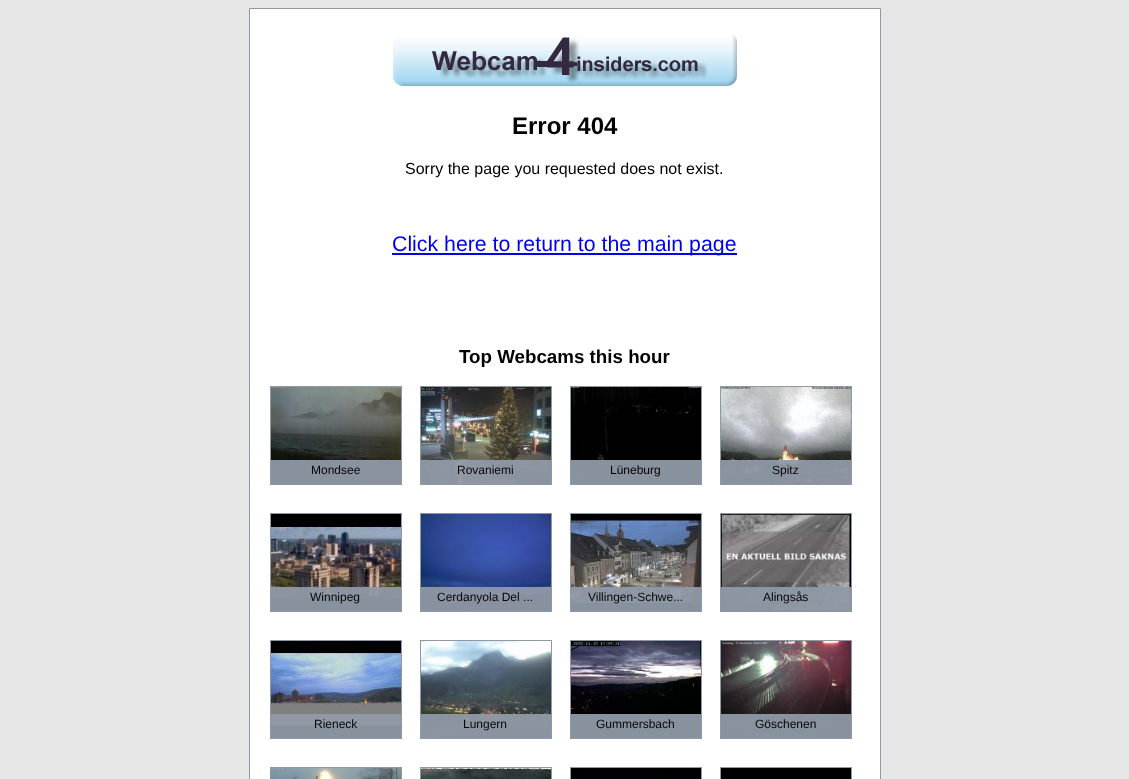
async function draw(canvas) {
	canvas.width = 1129;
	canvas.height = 779;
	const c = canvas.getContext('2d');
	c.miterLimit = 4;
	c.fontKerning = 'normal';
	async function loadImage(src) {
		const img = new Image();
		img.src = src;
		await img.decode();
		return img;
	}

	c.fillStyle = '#e6e6e6';
	c.fillRect(0, 0, 1129, 779);
	c.fillStyle = '#fff';
	c.beginPath();
	c.rect(249.5, 8.5, 631, 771);
	c.fill();
	c.strokeStyle = '#8f99a6';
	c.stroke();
	c.drawImage(await loadImage('img1.png'), 393, 34, 344, 52);
	c.font = 'bold 24px Liberation Sans';
	c.fillStyle = '#000';
	c.fillText('Error 404', 512, 134);
	c.font = '16px Liberation Sans';
	c.fillText('Sorry the page you requested does not exist.', 405, 174);
	c.fillStyle = '#00e';
	c.fillRect(392, 253, 345, 2);
	c.font = '21.3px Liberation Sans';
	c.fillText('Click here to return to the main page', 392, 251);
	c.font = 'bold 18.75px Liberation Sans';
	c.fillStyle = '#000';
	c.fillText('Top Webcams this hour', 459, 363);
	c.strokeRect(270.5, 386.5, 131, 98);
	c.drawImage(await loadImage('img2.png'), 271, 387, 130, 97);
	c.fillStyle = '#8f99a6f2';
	c.fillRect(271, 460, 130, 24);
	c.font = '12px Liberation Sans';
	c.fillStyle = '#070708';
	c.fillText('Mondsee', 311, 474);
	c.strokeRect(420.5, 386.5, 131, 98);
	c.drawImage(await loadImage('img3.png'), 421, 387, 130, 97);
	c.fillStyle = '#8f99a6f2';
	c.fillRect(421, 460, 130, 24);
	c.fillStyle = '#070708';
	c.fillText('Rovaniemi', 457, 474);
	c.strokeRect(570.5, 386.5, 131, 98);
	c.drawImage(await loadImage('img4.png'), 571, 387, 130, 97);
	c.fillStyle = '#8f99a6f2';
	c.fillRect(571, 460, 130, 24);
	c.fillStyle = '#000';
	c.fillText('Lüneburg', 610, 474);
	c.strokeRect(720.5, 386.5, 131, 98);
	c.drawImage(await loadImage('img5.png'), 721, 387, 130, 97);
	c.fillStyle = '#8f99a6f2';
	c.fillRect(721, 460, 130, 24);
	c.fillStyle = '#070708';
	c.fillText('Spitz', 772, 474);
	c.strokeRect(270.5, 513.5, 131, 98);
	c.drawImage(await loadImage('img6.png'), 271, 514, 130, 97);
	c.fillStyle = '#8f99a6f2';
	c.fillRect(271, 587, 130, 24);
	c.fillStyle = '#070708';
	c.fillText('Winnipeg', 310, 601);
	c.strokeRect(420.5, 513.5, 131, 98);
	c.drawImage(await loadImage('img7.png'), 421, 514, 130, 97);
	c.fillStyle = '#8f99a6f2';
	c.fillRect(421, 587, 130, 24);
	c.fillStyle = '#070708';
	c.fillText('Cerdanyola Del ...', 437, 601);
	c.strokeRect(570.5, 513.5, 131, 98);
	c.drawImage(await loadImage('img8.png'), 571, 514, 130, 97);
	c.fillStyle = '#8f99a6f2';
	c.fillRect(571, 587, 130, 24);
	c.fillStyle = '#070708';
	c.fillText('Villingen-Schwe...', 588, 601);
	c.strokeRect(720.5, 513.5, 131, 98);
	c.drawImage(await loadImage('img9.png'), 721, 514, 130, 97);
	c.fillStyle = '#8f99a6f2';
	c.fillRect(721, 587, 130, 24);
	c.fillStyle = '#070708';
	c.fillText('Alingsås', 763, 601);
	c.strokeRect(270.5, 640.5, 131, 98);
	c.drawImage(await loadImage('img10.png'), 271, 641, 130, 97);
	c.fillStyle = '#8f99a6f2';
	c.fillRect(271, 714, 130, 24);
	c.fillStyle = '#070708';
	c.fillText('Rieneck', 314, 728);
	c.strokeRect(420.5, 640.5, 131, 98);
	c.drawImage(await loadImage('img11.png'), 421, 641, 130, 97);
	c.fillStyle = '#8f99a6f2';
	c.fillRect(421, 714, 130, 24);
	c.fillStyle = '#070708';
	c.fillText('Lungern', 463, 728);
	c.strokeRect(570.5, 640.5, 131, 98);
	c.drawImage(await loadImage('img12.png'), 571, 641, 130, 97);
	c.fillStyle = '#8f99a6f2';
	c.fillRect(571, 714, 130, 24);
	c.fillStyle = '#070708';
	c.fillText('Gummersbach', 596, 728);
	c.strokeRect(720.5, 640.5, 131, 98);
	c.drawImage(await loadImage('img13.png'), 721, 641, 130, 97);
	c.fillStyle = '#8f99a6f2';
	c.fillRect(721, 714, 130, 24);
	c.fillStyle = '#070708';
	c.fillText('Göschenen', 755, 728);
	c.strokeRect(270.5, 767.5, 131, 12);
	c.drawImage(await loadImage('img14.png'), 271, 768, 130, 11);
	c.strokeRect(420.5, 767.5, 131, 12);
	c.drawImage(await loadImage('img15.png'), 421, 768, 130, 11);
	c.strokeRect(570.5, 767.5, 131, 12);
	c.drawImage(await loadImage('img16.png'), 571, 768, 130, 11);
	c.strokeRect(720.5, 767.5, 131, 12);
	c.fillStyle = '#000';
	c.fillRect(721, 768, 130, 11);
}

draw(document.querySelector('canvas'));
